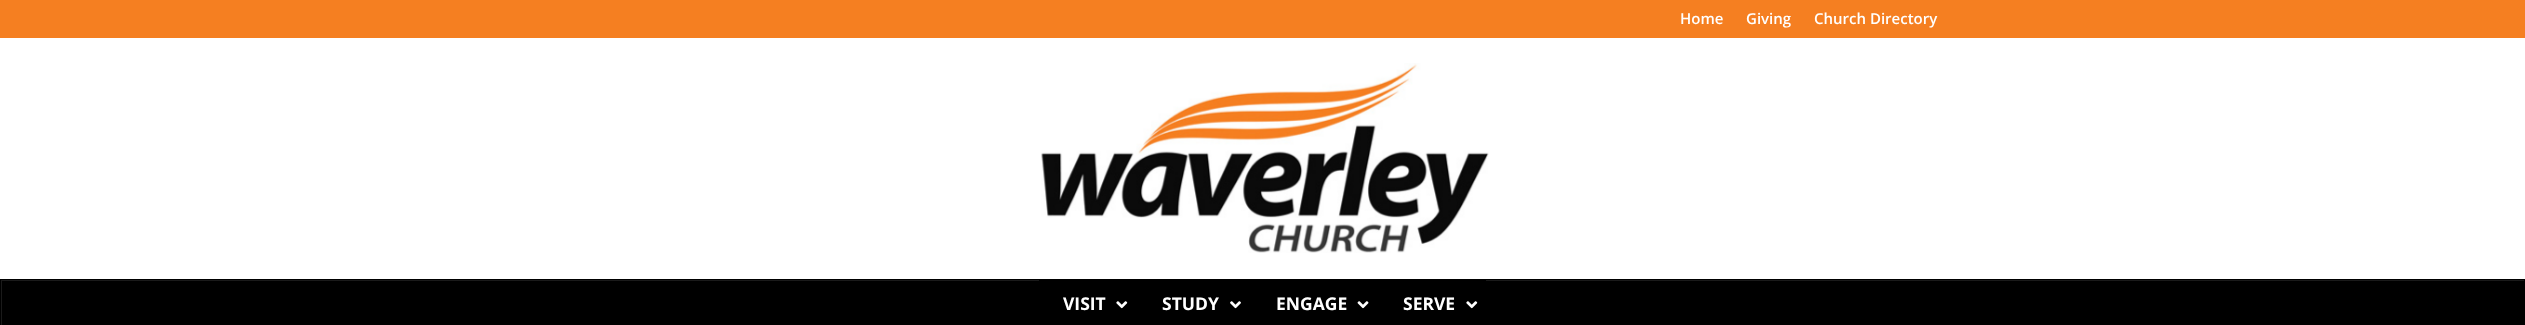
async function draw(canvas) {
	canvas.width = 2525;
	canvas.height = 325;
	const c = canvas.getContext('2d');
	c.miterLimit = 4;
	c.fontKerning = 'normal';
	async function loadImage(src) {
		const img = new Image();
		img.src = src;
		await img.decode();
		return img;
	}

	c.fillStyle = '#fff';
	c.fillRect(0, 0, 2525, 325);
	c.fillStyle = '#f57f21';
	c.fillRect(0, 0, 2525, 38);
	c.font = '600 15px Open Sans';
	c.fillStyle = '#fff';
	for (const [text, x, y] of [
		['Home', 1680, 24],
		['Giving', 1746, 24],
		['Church Directory', 1814, 24],
	]) {
		c.fillText(text, x, y);
	}
	c.drawImage(await loadImage('img1.png'), 1041, 63, 448, 190);
	c.fillStyle = '#000';
	c.fillRect(0, 279, 2525, 46);
	c.save();
	c.beginPath();
	c.rect(1, 280, 2523, 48);
	c.clip();
	c.fillStyle = '#1a1a1a';
	c.beginPath();
	c.moveTo(-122, 156);
	c.lineTo(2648, 156);
	c.lineTo(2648, 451);
	c.lineTo(-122, 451);
	c.closePath();
	c.moveTo(2, 281);
	c.lineTo(2525, 281);
	c.lineTo(2525, 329);
	c.lineTo(2, 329);
	c.closePath();
	c.fill('evenodd');
	c.restore();
	c.fillRect(1039, 280, 447, 1);
	c.font = 'bold 17.5px Open Sans';
	c.fillStyle = '#fff';
	c.fillText('VISIT', 1063, 310);
	c.drawImage(await loadImage('img2.png'), 1116, 301, 12, 8);
	c.fillText('STUDY', 1162, 310);
	c.drawImage(await loadImage('img3.png'), 1230, 301, 11, 8);
	c.fillText('ENGAGE', 1276, 310);
	c.drawImage(await loadImage('img4.png'), 1357, 301, 12, 8);
	c.fillText('SERVE', 1403, 310);
	c.drawImage(await loadImage('img2.png'), 1466, 301, 12, 8);
}

draw(document.querySelector('canvas'));
